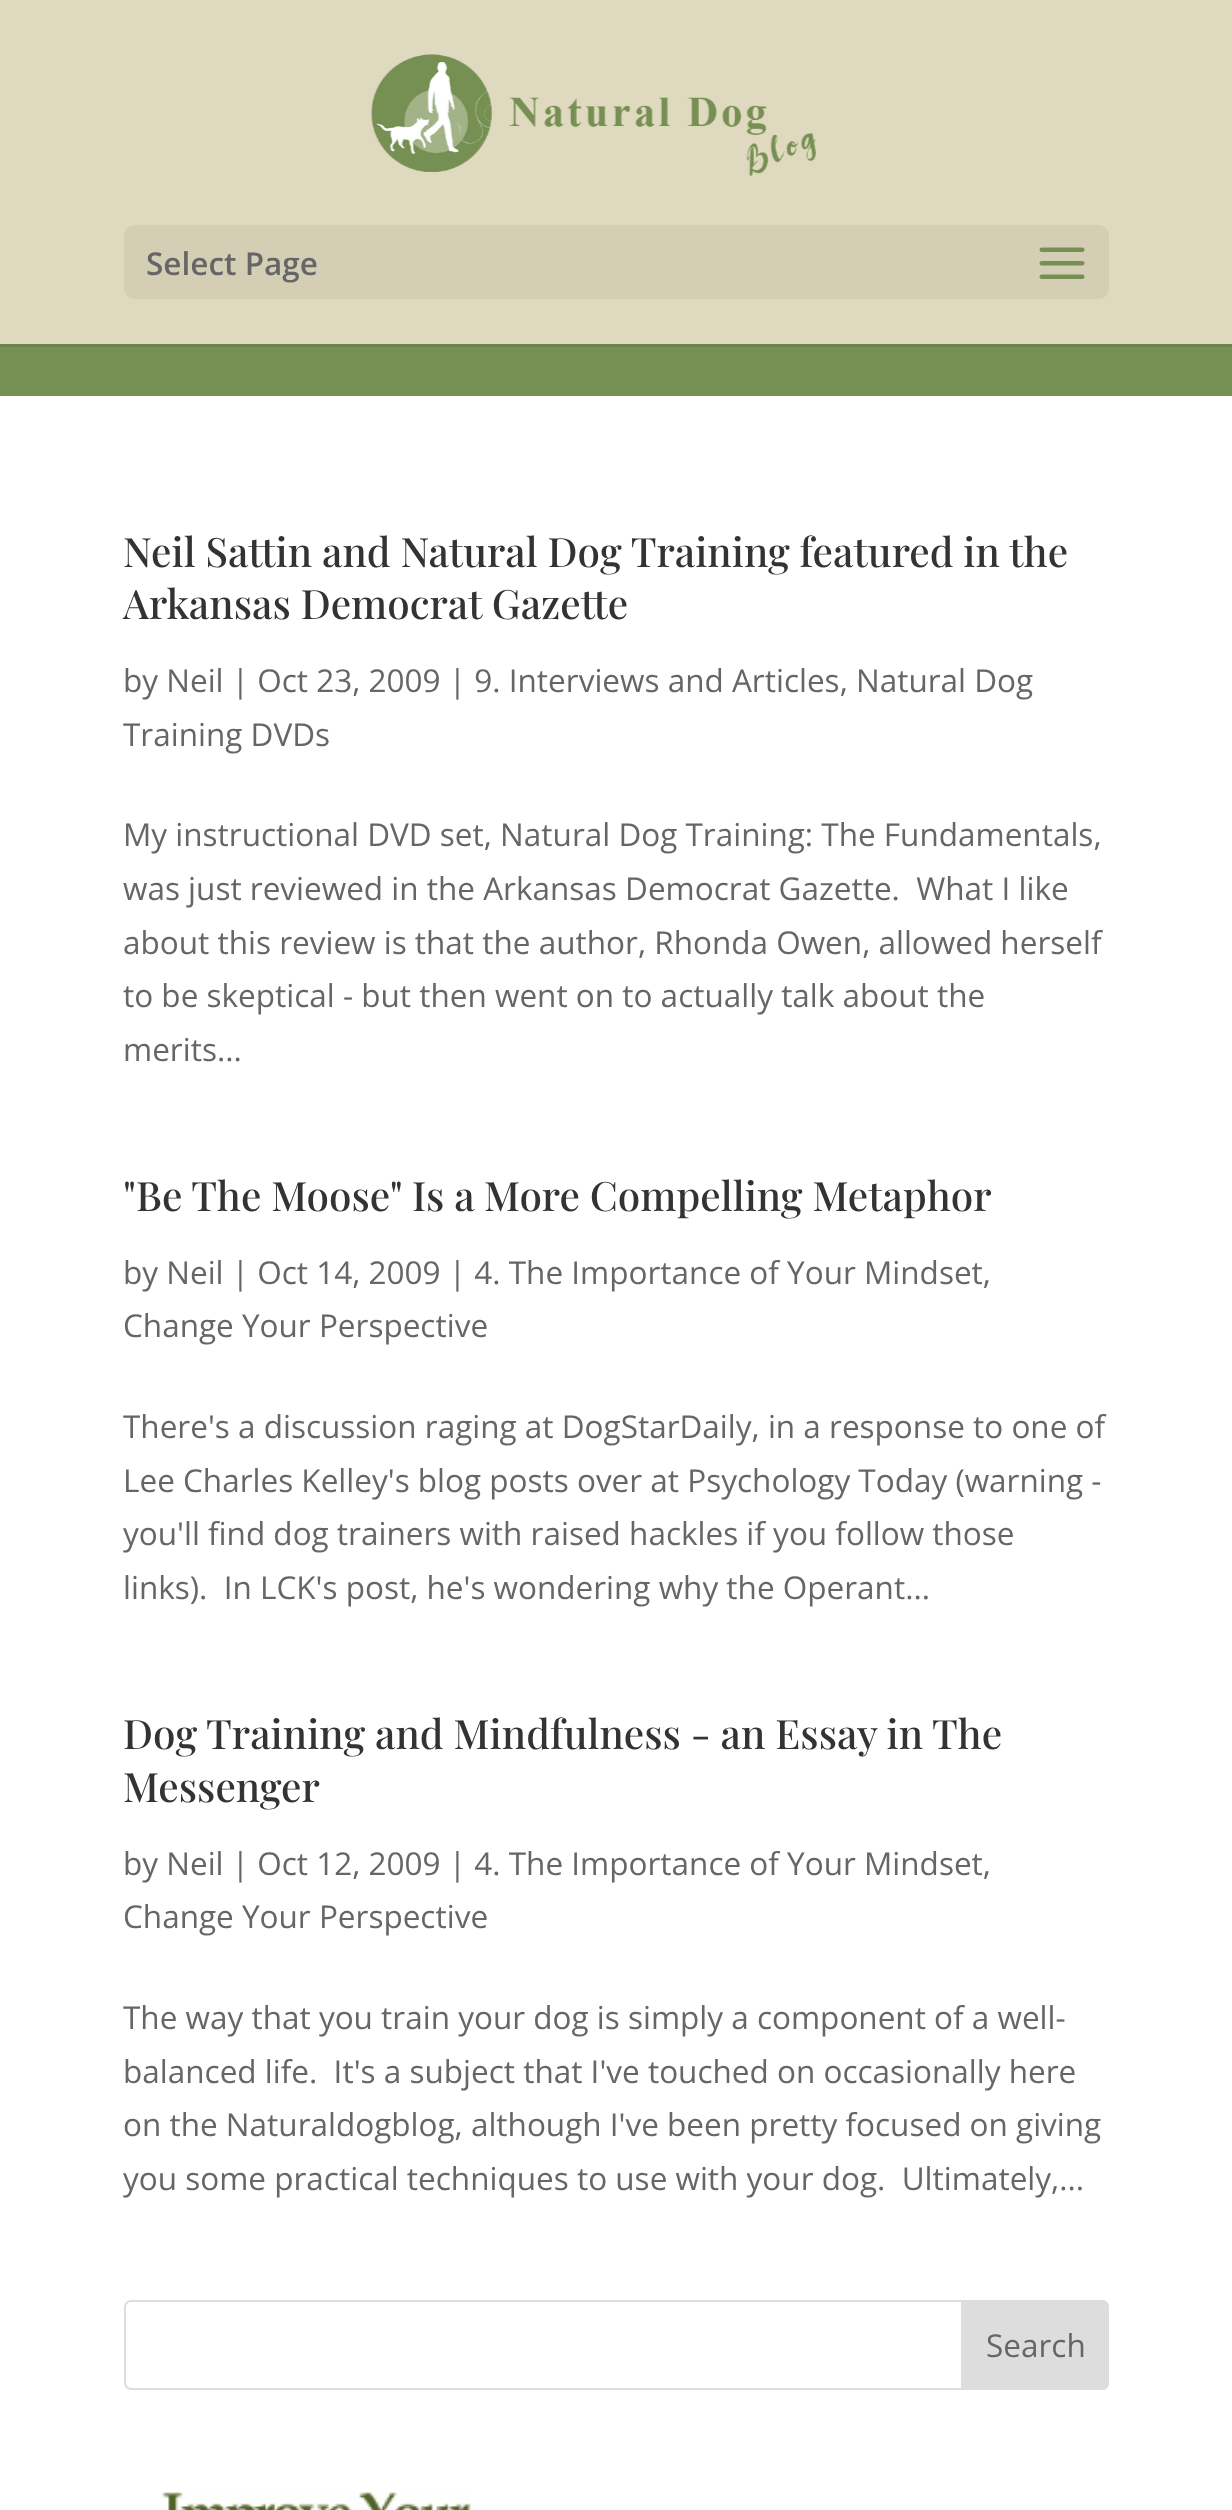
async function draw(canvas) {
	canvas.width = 1232;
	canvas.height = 2510;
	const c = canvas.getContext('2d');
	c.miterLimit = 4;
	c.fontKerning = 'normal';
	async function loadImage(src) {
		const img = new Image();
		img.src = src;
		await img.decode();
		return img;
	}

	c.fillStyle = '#fff';
	c.fillRect(0, 0, 1232, 2510);
	c.drawImage(await loadImage('img1.png'), 0, 347, 1232, 49);
	c.fillStyle = '#6a824b';
	c.fillRect(0, 344, 1232, 3);
	c.fillStyle = '#dfd9bf';
	c.fillRect(0, 0, 1232, 344);
	c.drawImage(await loadImage('img2.png'), 371, 54, 446, 122);
	c.fillStyle = '#d4ceb5';
	c.beginPath();
	c.roundRect(124, 225, 985, 74, 11);
	c.fill();
	c.font = '600 31.5px Open Sans';
	c.fillStyle = '#666';
	c.fillText('Select Page', 146, 275);
	c.drawImage(await loadImage('img3.png'), 1039, 247, 46, 32);
	c.font = '500 40.5px Playfair Display';
	c.fillStyle = '#333';
	c.fillText('Neil Sattin and Natural Dog Training featured in the', 123, 567);
	c.fillText('Arkansas Democrat Gazette', 123, 619);
	c.font = '31.5px Open Sans';
	c.fillStyle = '#666';
	for (const [text, x, y] of [
		['by Neil | Oct 23, 2009 | 9. Interviews and Articles, Natural Dog', 123, 692],
		['Training DVDs', 123, 746],
		['My instructional DVD set, Natural Dog Training: The Fundamentals,', 123, 846],
		['was just reviewed in the Arkansas Democrat Gazette.  What I like', 123, 900],
		['about this review is that the author, Rhonda Owen, allowed herself', 123, 954],
		['to be skeptical - but then went on to actually talk about the', 123, 1007],
		['merits...', 123, 1061],
	]) {
		c.fillText(text, x, y);
	}
	c.font = '500 40.5px Playfair Display';
	c.fillStyle = '#333';
	c.fillText('"Be The Moose" Is a More Compelling Metaphor', 123, 1211);
	c.font = '31.5px Open Sans';
	c.fillStyle = '#666';
	for (const [text, x, y] of [
		['by Neil | Oct 14, 2009 | 4. The Importance of Your Mindset,', 123, 1284],
		['Change Your Perspective', 123, 1337],
		['There\'s a discussion raging at DogStarDaily, in a response to one of', 123, 1438],
		['Lee Charles Kelley\'s blog posts over at Psychology Today (warning -', 123, 1492],
		['you\'ll find dog trainers with raised hackles if you follow those', 123, 1545],
		['links).  In LCK\'s post, he\'s wondering why the Operant...', 123, 1599],
	]) {
		c.fillText(text, x, y);
	}
	c.font = '500 40.5px Playfair Display';
	c.fillStyle = '#333';
	c.fillText('Dog Training and Mindfulness - an Essay in The', 123, 1749);
	c.fillText('Messenger', 123, 1802);
	c.font = '31.5px Open Sans';
	c.fillStyle = '#666';
	for (const [text, x, y] of [
		['by Neil | Oct 12, 2009 | 4. The Importance of Your Mindset,', 123, 1875],
		['Change Your Perspective', 123, 1928],
		['The way that you train your dog is simply a component of a well-', 123, 2029],
		['balanced life.  It\'s a subject that I\'ve touched on occasionally here', 123, 2083],
		['on the Naturaldogblog, although I\'ve been pretty focused on giving', 123, 2136],
		['you some practical techniques to use with your dog.  Ultimately,...', 123, 2190],
	]) {
		c.fillText(text, x, y);
	}
	c.beginPath();
	c.roundRect(125, 2301, 983, 88, 6);
	c.strokeStyle = '#ddd';
	c.lineWidth = 2;
	c.stroke();
	c.fillStyle = '#ddd';
	c.beginPath();
	c.roundRect(962, 2301, 146, 88, [0, 6, 6, 0]);
	c.fill();
	c.stroke();
	c.fillStyle = '#666';
	c.fillText('Search', 986, 2357);
	c.drawImage(await loadImage('img4.png'), 161, 2492, 310, 18);
}

draw(document.querySelector('canvas'));
